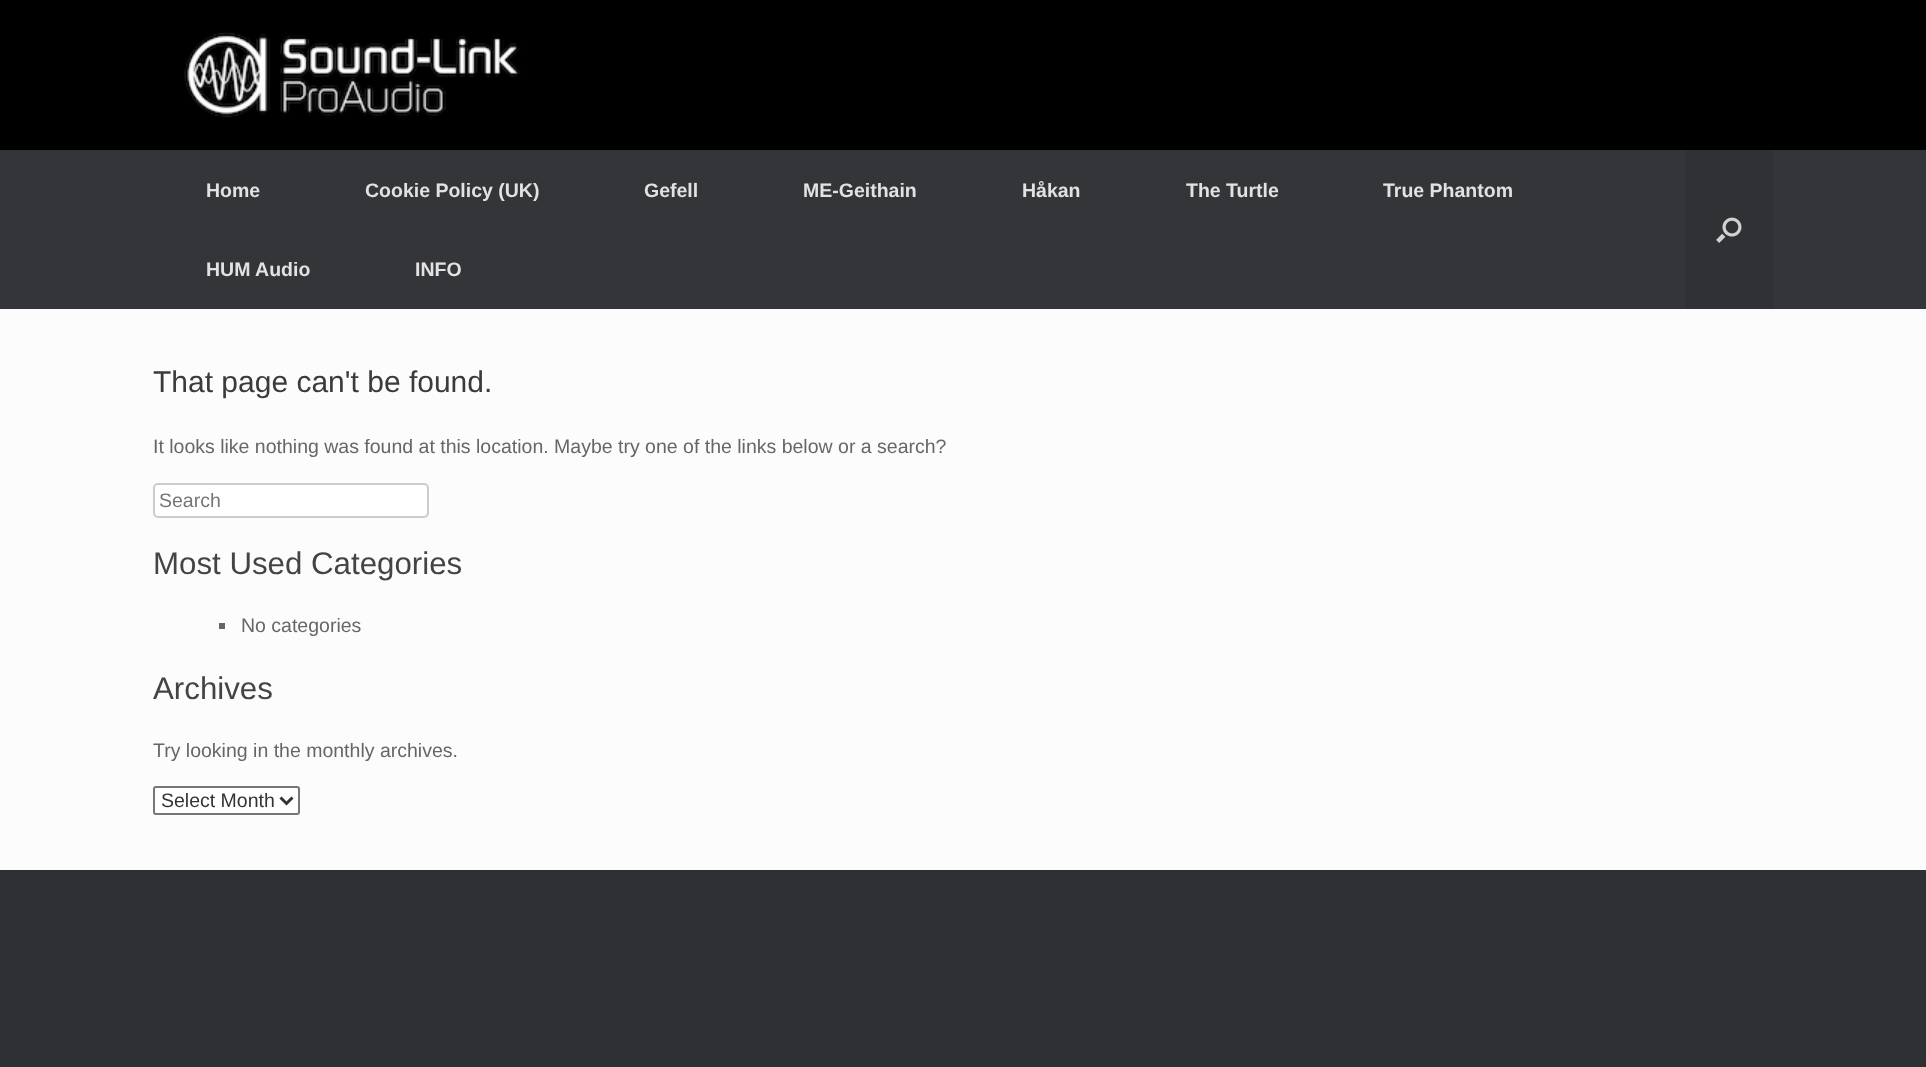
async function draw(canvas) {
	canvas.width = 1926;
	canvas.height = 1067;
	const c = canvas.getContext('2d');
	c.miterLimit = 4;
	c.fontKerning = 'normal';
	async function loadImage(src) {
		const img = new Image();
		img.src = src;
		await img.decode();
		return img;
	}

	c.fillStyle = '#2f3033';
	c.fillRect(0, 0, 1926, 1067);
	c.fillStyle = '#000';
	c.fillRect(0, 0, 1926, 150);
	c.drawImage(await loadImage('img1.png'), 184, 32, 337, 86);
	c.fillStyle = '#343538';
	c.fillRect(0, 150, 1926, 159);
	c.font = 'bold 19.5px Liberation Sans';
	c.fillStyle = '#e2e2e2';
	for (const [text, x, y] of [
		['Home', 206, 197],
		['Cookie Policy (UK)', 365, 197],
		['Gefell', 644, 197],
		['ME-Geithain', 803, 197],
		['Håkan', 1022, 197],
		['The Turtle', 1186, 197],
		['True Phantom', 1383, 197],
		['HUM Audio', 206, 276],
		['INFO', 415, 276],
	]) {
		c.fillText(text, x, y);
	}
	c.fillStyle = '#303134';
	c.fillRect(1685, 150, 88, 159);
	c.drawImage(await loadImage('img2.png'), 1716, 217, 26, 26);
	c.fillStyle = '#fcfcfc';
	c.fillRect(0, 309, 1926, 561);
	c.font = '30px Liberation Sans';
	c.fillStyle = '#3b3b3b';
	c.fillText('That page can\'t be found.', 153, 392);
	c.font = '19.5px Liberation Sans';
	c.fillStyle = '#666';
	c.fillText('It looks like nothing was found at this location. Maybe try one of the links below or a search?', 153, 453);
	c.fillStyle = '#fff';
	c.beginPath();
	c.roundRect(154, 484, 274, 33, 4);
	c.fill();
	c.strokeStyle = '#ccc';
	c.lineWidth = 2;
	c.stroke();
	c.fillStyle = '#757575';
	c.fillText('Search', 159, 507);
	c.font = '31.25px Liberation Sans';
	c.fillStyle = '#444';
	c.fillText('Most Used Categories', 153, 574);
	c.fillStyle = '#666';
	c.fillRect(219, 623, 6, 6);
	c.font = '19.5px Liberation Sans';
	c.fillText('No categories', 241, 632);
	c.font = '31.25px Liberation Sans';
	c.fillStyle = '#444';
	c.fillText('Archives', 153, 699);
	c.font = '19.5px Liberation Sans';
	c.fillStyle = '#666';
	c.fillText('Try looking in the monthly archives.', 153, 757);
	c.fillStyle = '#fff';
	c.beginPath();
	c.roundRect(154, 787, 145, 27, 2);
	c.fill();
	c.strokeStyle = '#767676';
	c.stroke();
	c.beginPath();
	c.moveTo(280.5, 797.5);
	c.lineTo(286.5, 803.5);
	c.lineTo(292.5, 797.5);
	c.strokeStyle = '#333';
	c.lineWidth = 3;
	c.stroke();
	c.fillStyle = '#333';
	c.fillText('Select Month', 161, 807);
}

draw(document.querySelector('canvas'));
